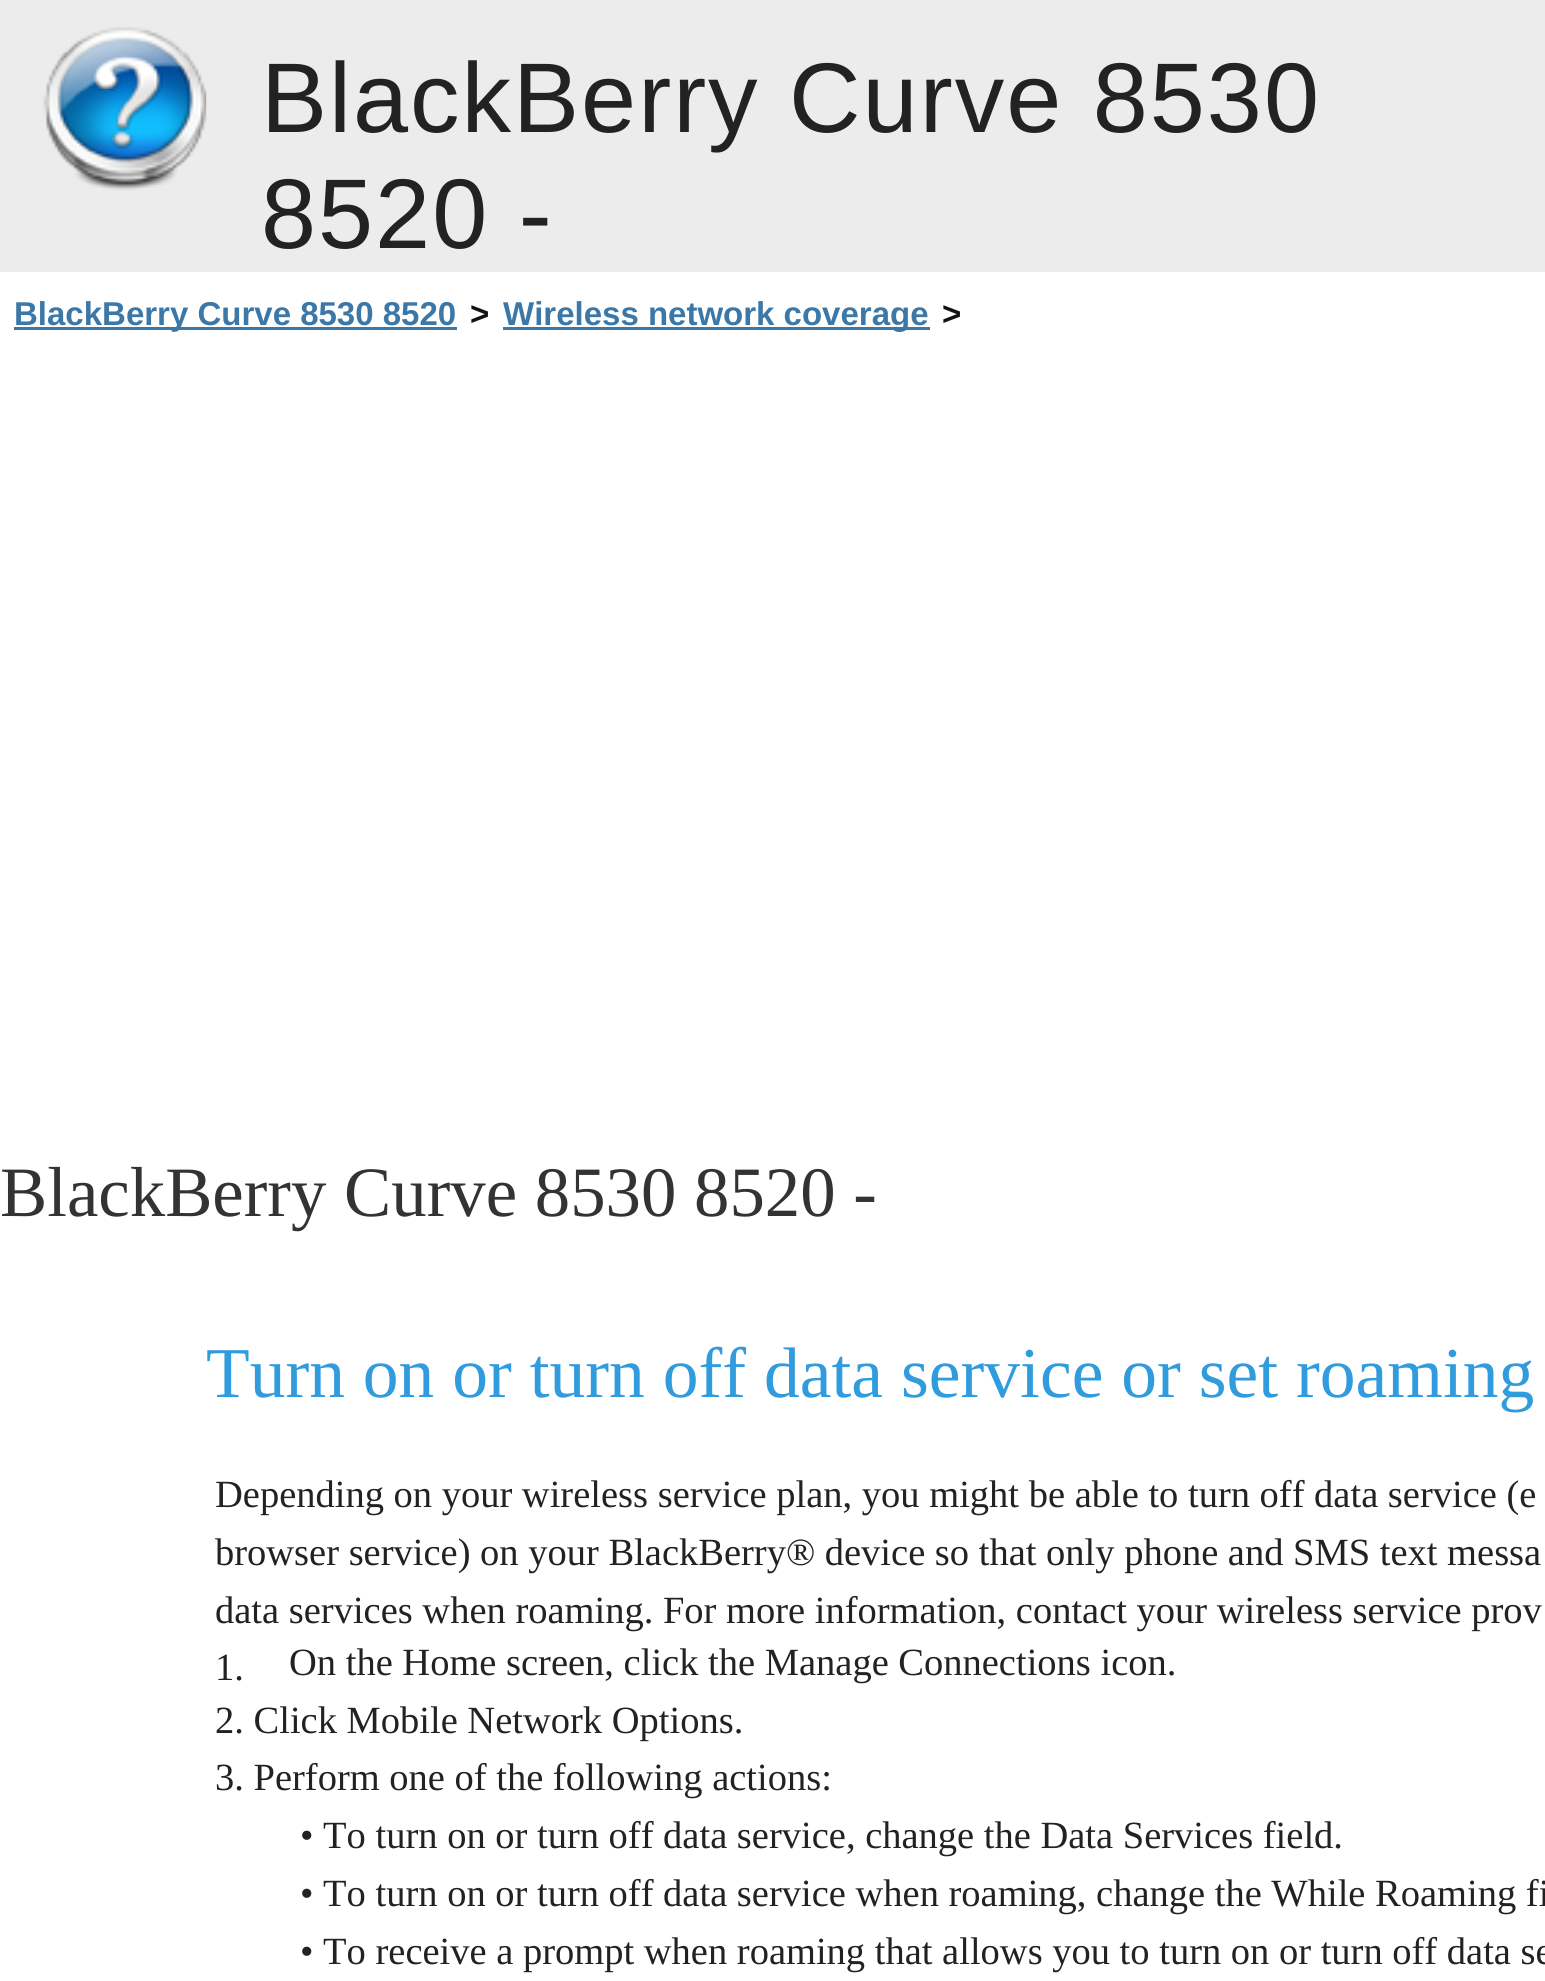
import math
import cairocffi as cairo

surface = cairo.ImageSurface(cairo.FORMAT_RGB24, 1545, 1981)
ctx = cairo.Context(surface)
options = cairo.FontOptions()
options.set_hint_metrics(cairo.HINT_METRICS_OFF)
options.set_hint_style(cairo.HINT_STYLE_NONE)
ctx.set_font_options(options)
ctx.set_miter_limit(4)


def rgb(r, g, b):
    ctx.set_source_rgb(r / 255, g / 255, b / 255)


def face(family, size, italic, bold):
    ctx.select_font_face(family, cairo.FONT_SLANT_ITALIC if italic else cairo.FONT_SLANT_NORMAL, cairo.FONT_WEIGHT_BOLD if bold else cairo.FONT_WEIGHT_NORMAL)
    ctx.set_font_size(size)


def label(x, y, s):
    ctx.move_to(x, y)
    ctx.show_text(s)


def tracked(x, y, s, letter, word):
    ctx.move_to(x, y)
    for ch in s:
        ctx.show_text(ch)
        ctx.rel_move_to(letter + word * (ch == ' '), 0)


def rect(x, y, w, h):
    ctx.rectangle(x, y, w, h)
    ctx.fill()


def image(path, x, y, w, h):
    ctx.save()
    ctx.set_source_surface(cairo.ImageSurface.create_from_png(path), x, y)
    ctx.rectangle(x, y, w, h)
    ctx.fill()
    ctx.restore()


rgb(236, 236, 236)
ctx.paint()
image('image0.png', 43, 27, 164, 164)
face('Liberation Sans', 99, 0, 0)
rgb(34, 34, 34)
tracked(261, 132, 'BlackBerry Curve 8530', 2, 0)
tracked(261, 248, '8520 -', 2, 0)
rgb(255, 255, 255)
rect(0, 272, 1545, 1709)
rgb(60, 120, 167)
rect(14, 327, 443, 3)
face('Liberation Sans', 33, 0, 1)
label(14, 325, 'BlackBerry Curve 8530 8520')
rgb(17, 17, 17)
label(470, 325, '>')
rgb(60, 120, 167)
rect(503, 327, 427, 3)
label(503, 325, 'Wireless network coverage')
rgb(17, 17, 17)
label(942, 325, '>')
face('Liberation Serif', 70.8, 0, 0)
rgb(51, 51, 51)
label(0, 1216, 'BlackBerry Curve 8530 8520 -')
face('Liberation Serif', 71.5, 0, 0)
rgb(48, 155, 221)
label(206, 1397, 'Turn on or turn off data service or set roaming')
face('Liberation Serif', 38.5, 0, 0)
rgb(34, 34, 34)
label(215, 1507, 'Depending on your wireless service plan, you might be able to turn off data service (e')
label(215, 1565, 'browser service) on your BlackBerry® device so that only phone and SMS text messa')
label(215, 1623, 'data services when roaming. For more information, contact your wireless service prov')
label(215, 1680, '1.')
label(289, 1675, 'On the Home screen, click the Manage Connections icon.')
label(215, 1733, '2. Click Mobile Network Options.')
label(215, 1790, '3. Perform one of the following actions:')
label(300, 1848, '• To turn on or turn off data service, change the Data Services field.')
label(300, 1906, '• To turn on or turn off data service when roaming, change the While Roaming fi')
label(300, 1964, '• To receive a prompt when roaming that allows you to turn on or turn off data se')
surface.write_to_png('render.png')
